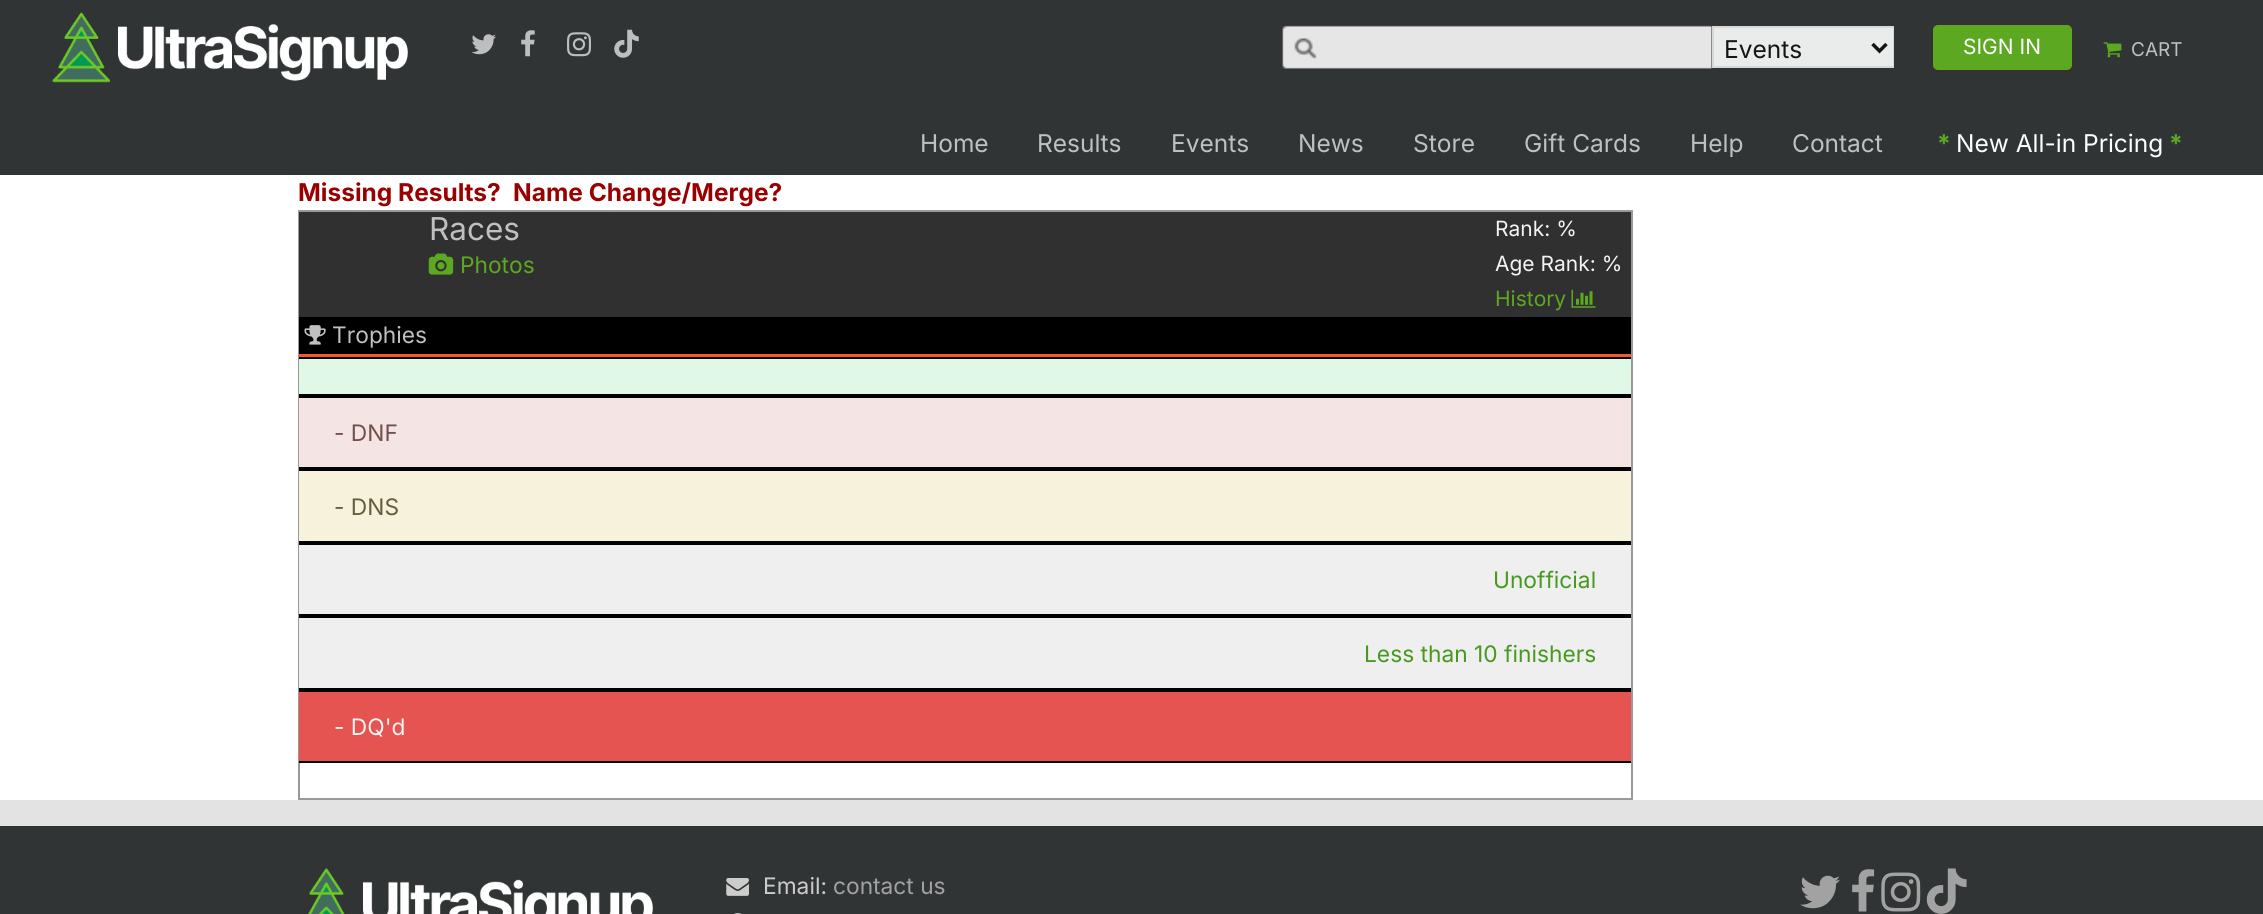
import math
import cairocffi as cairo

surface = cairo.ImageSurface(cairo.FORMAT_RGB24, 2263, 914)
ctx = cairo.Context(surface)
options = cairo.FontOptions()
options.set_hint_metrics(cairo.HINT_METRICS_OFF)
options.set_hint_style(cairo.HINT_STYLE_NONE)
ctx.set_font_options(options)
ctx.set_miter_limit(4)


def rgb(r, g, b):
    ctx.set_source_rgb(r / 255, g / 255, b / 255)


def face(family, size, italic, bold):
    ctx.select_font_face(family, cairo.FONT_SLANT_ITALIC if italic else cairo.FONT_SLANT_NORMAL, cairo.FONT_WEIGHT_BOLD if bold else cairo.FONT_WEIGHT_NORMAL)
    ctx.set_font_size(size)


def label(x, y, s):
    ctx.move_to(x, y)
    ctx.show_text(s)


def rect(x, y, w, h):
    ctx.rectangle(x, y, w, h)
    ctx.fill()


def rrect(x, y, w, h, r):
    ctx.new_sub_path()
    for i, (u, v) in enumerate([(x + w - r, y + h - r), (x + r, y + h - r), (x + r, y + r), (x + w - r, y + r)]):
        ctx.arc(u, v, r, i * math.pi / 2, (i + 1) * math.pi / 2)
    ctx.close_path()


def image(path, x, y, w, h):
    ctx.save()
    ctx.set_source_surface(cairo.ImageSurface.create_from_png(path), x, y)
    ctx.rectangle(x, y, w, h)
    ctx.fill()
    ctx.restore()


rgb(255, 255, 255)
ctx.paint()
rgb(48, 52, 52)
rect(0, 0, 2263, 175)
image('image0.png', 52, 12, 356, 71)
image('image1.png', 471, 34, 25, 21)
image('image2.png', 521, 30, 14, 27)
image('image3.png', 567, 32, 24, 25)
image('image4.png', 614, 29, 25, 29)
image('image5.png', 1282, 25, 430, 44)
rgb(234, 235, 235)
rect(1714, 28, 179, 38)
ctx.save()
ctx.rectangle(1694, 23, 200, 47)
ctx.clip()
ctx.rectangle(1713, 27, 181, 40)
rgb(216, 216, 215)
ctx.stroke()
ctx.restore()
ctx.new_path()
ctx.move_to(1872.5, 44)
ctx.line_to(1879.5, 51)
ctx.line_to(1886.5, 44)
rgb(19, 22, 22)
ctx.set_line_width(3.5)
ctx.stroke()
face('Inter', 24.5, 0, 0)
label(1724, 58, 'Events')
rgb(92, 169, 33)
rrect(1931, 23, 143, 49, 7)
ctx.fill_preserve()
rgb(51, 51, 51)
ctx.set_line_width(4)
ctx.stroke()
face('Inter', 21, 0, 0)
rgb(255, 255, 255)
label(1963, 54, 'SIGN IN')
image('image6.png', 2103, 42, 19, 16)
face('Inter', 19, 0, 0)
rgb(192, 192, 192)
label(2131, 56, 'CART')
face('Inter', 24.5, 0, 0)
label(920, 152, 'Home')
label(1037, 152, 'Results')
label(1171, 152, 'Events')
label(1298, 152, 'News')
label(1413, 152, 'Store')
label(1524, 152, 'Gift Cards')
label(1690, 152, 'Help')
label(1792, 152, 'Contact')
face('Inter', 24.5, 0, 1)
rgb(92, 169, 33)
label(1937, 152, '*')
face('Inter', 24.5, 0, 0)
rgb(255, 255, 255)
label(1956, 152, 'New All-in Pricing')
face('Inter', 24.5, 0, 1)
rgb(92, 169, 33)
label(2169, 152, '*')
rgb(153, 0, 0)
label(298, 201, 'Missing Results?')
label(513, 201, 'Name Change/Merge?')
ctx.rectangle(299, 211, 1333, 588)
rgb(153, 153, 153)
ctx.set_line_width(2)
ctx.stroke()
rgb(48, 48, 48)
rect(299, 212, 1332, 105)
face('Inter', 31.5, 0, 0)
rgb(192, 192, 192)
label(429, 240, 'Races')
image('image7.png', 428, 253, 26, 22)
face('Inter', 22.75, 0, 0)
rgb(92, 169, 33)
label(460, 273, 'Photos')
face('Inter', 21, 0, 0)
rgb(244, 244, 244)
label(1495, 236, 'Rank: %')
label(1495, 271, 'Age Rank: %')
rgb(92, 169, 33)
label(1495, 306, 'History')
image('image8.png', 1571, 289, 25, 19)
rgb(0, 0, 0)
rect(299, 317, 1332, 37)
rgb(241, 90, 41)
rect(299, 354, 1332, 3)
image('image9.png', 304, 325, 22, 20)
face('Inter', 22.75, 0, 0)
rgb(192, 192, 192)
label(332, 343, 'Trophies')
rgb(224, 248, 230)
rect(299, 359, 1332, 35)
rgb(0, 0, 0)
rect(299, 357, 1332, 2)
rect(299, 394, 1332, 4)
rgb(244, 228, 228)
rect(299, 398, 1332, 69)
rgb(0, 0, 0)
rect(299, 467, 1332, 4)
rgb(117, 79, 79)
label(334, 441, '- DNF')
rgb(247, 242, 220)
rect(299, 471, 1332, 70)
rgb(0, 0, 0)
rect(299, 541, 1332, 4)
rgb(101, 93, 61)
label(334, 515, '- DNS')
rgb(239, 239, 239)
rect(299, 545, 1332, 69)
rgb(0, 0, 0)
rect(299, 614, 1332, 4)
rgb(71, 153, 31)
label(1493, 588, 'Unofficial')
rgb(239, 239, 239)
rect(299, 618, 1332, 70)
rgb(0, 0, 0)
rect(299, 688, 1332, 4)
rgb(71, 153, 31)
label(1364, 662, 'Less than 10 finishers')
rgb(229, 84, 81)
rect(299, 692, 1332, 69)
rgb(0, 0, 0)
rect(299, 761, 1332, 2)
rgb(244, 244, 244)
label(334, 735, '- DQ\'d')
rgb(227, 227, 227)
rect(0, 800, 2263, 26)
rgb(48, 52, 52)
rect(0, 826, 2263, 88)
image('image10.png', 308, 868, 345, 46)
image('image11.png', 726, 878, 23, 18)
rgb(204, 204, 204)
label(763, 894, 'Email:')
rgb(162, 162, 162)
label(833, 894, 'contact us')
image('image12.png', 734, 913, 8, 1)
image('image13.png', 1800, 875, 40, 34)
image('image14.png', 1852, 869, 23, 43)
image('image15.png', 1881, 872, 40, 40)
image('image16.png', 1926, 868, 41, 46)
surface.write_to_png('render.png')
